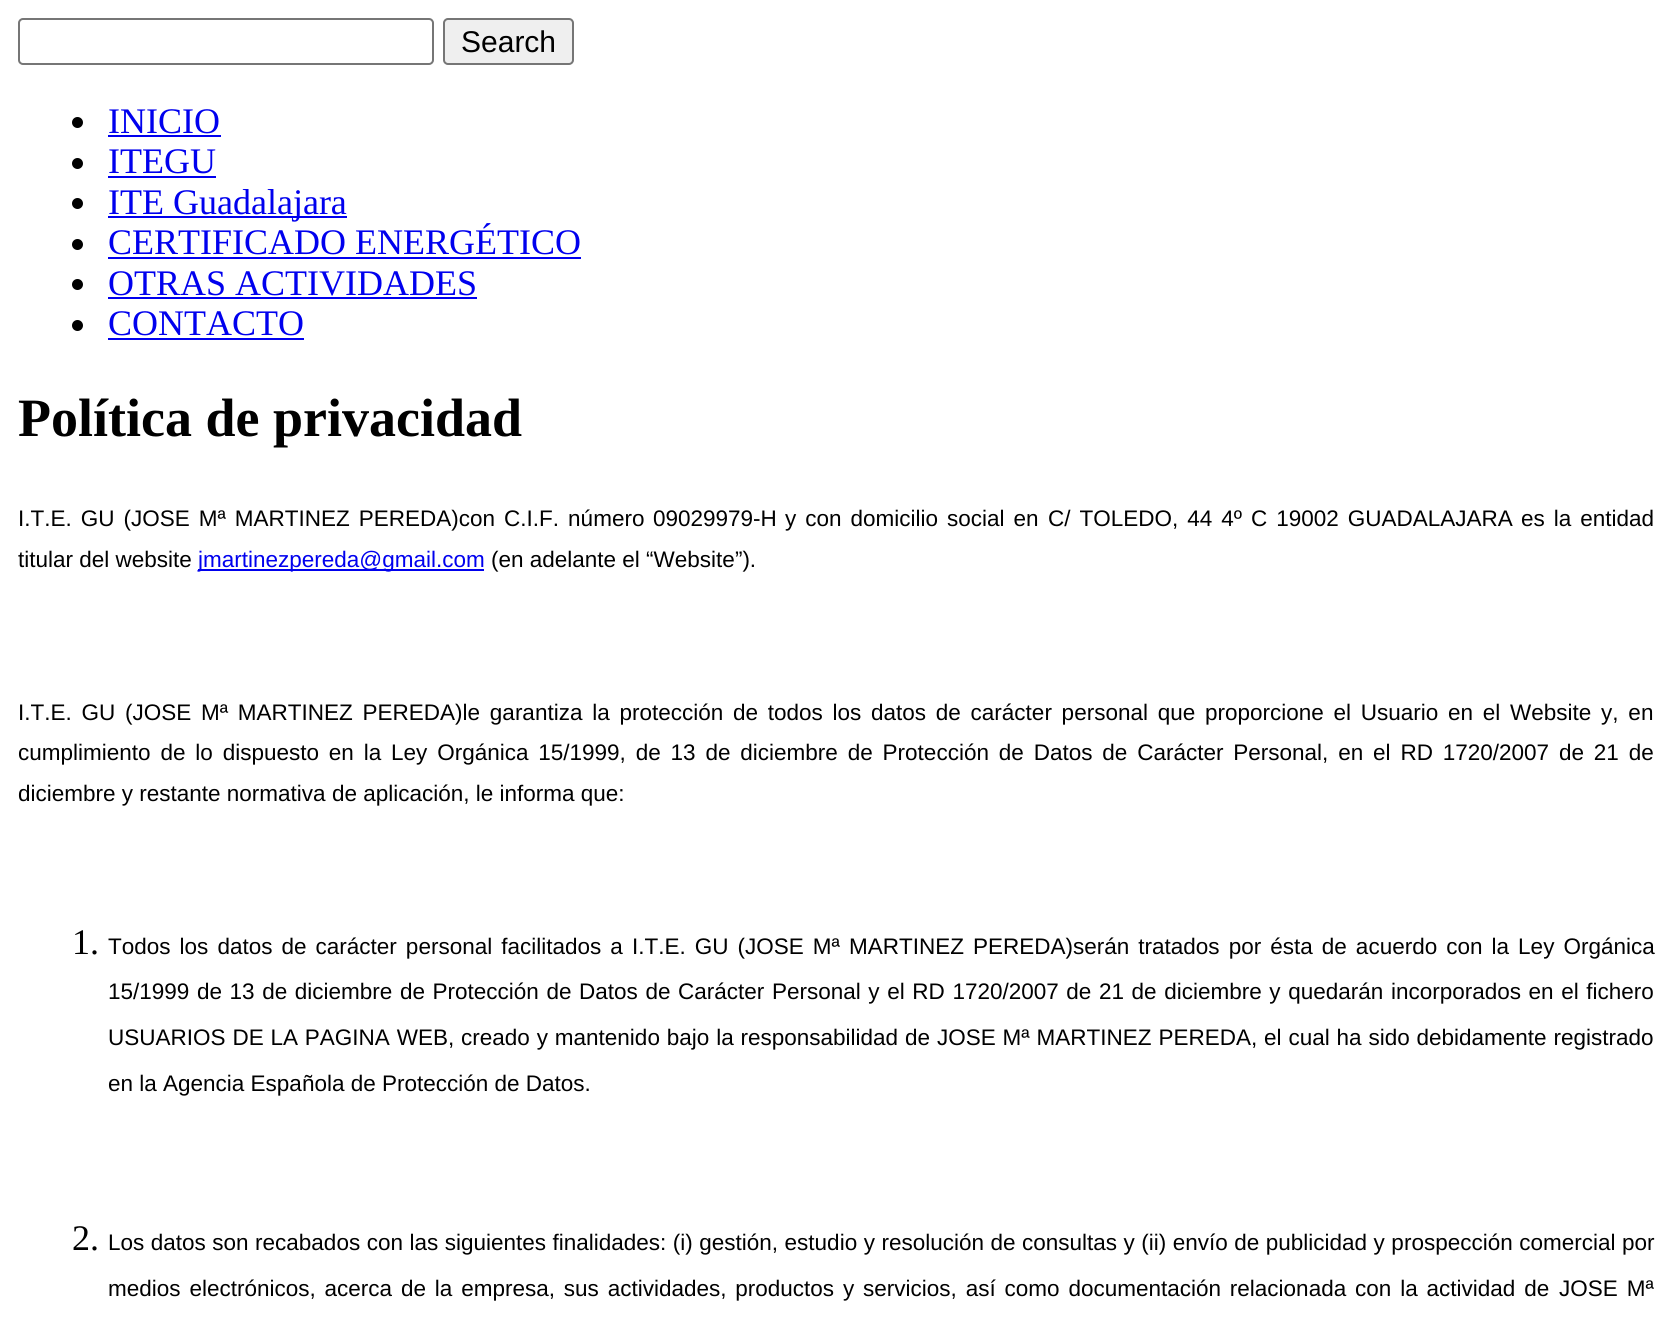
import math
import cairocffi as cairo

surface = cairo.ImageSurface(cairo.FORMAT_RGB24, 1670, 1336)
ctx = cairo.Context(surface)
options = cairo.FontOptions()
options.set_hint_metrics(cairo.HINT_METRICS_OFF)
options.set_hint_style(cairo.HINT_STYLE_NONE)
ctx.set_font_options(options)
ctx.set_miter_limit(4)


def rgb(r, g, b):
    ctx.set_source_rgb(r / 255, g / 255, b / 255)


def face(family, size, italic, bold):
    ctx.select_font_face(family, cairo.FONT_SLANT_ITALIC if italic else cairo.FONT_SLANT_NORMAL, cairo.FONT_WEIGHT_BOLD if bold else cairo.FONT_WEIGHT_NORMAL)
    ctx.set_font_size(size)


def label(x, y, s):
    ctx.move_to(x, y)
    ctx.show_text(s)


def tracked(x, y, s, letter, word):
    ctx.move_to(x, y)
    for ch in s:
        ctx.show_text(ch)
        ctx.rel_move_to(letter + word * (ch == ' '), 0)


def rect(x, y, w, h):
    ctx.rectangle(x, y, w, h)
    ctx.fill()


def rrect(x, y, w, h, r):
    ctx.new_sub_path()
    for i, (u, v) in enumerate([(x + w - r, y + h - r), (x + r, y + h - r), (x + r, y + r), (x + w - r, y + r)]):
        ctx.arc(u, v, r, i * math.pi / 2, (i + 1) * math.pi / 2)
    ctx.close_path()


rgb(255, 255, 255)
ctx.paint()
rrect(19, 19, 414, 45, 4)
rgb(118, 118, 118)
ctx.stroke()
rgb(239, 239, 239)
rrect(444, 19, 129, 45, 4)
ctx.fill_preserve()
rgb(118, 118, 118)
ctx.stroke()
face('Liberation Sans', 30, 0, 0)
rgb(0, 0, 0)
label(461, 52, 'Search')
ctx.new_path()
ctx.arc(77.5, 122.5, 5.5, 0, 2 * math.pi)
ctx.fill()
face('Liberation Serif', 36, 0, 0)
rgb(0, 0, 238)
label(108, 133, 'INICIO')
rect(108, 135, 113, 2)
rgb(0, 0, 0)
ctx.new_path()
ctx.arc(77.5, 163.5, 5.5, 0, 2 * math.pi)
ctx.fill()
rgb(0, 0, 238)
label(108, 173, 'ITEGU')
rect(108, 176, 108, 2)
rgb(0, 0, 0)
ctx.new_path()
ctx.arc(77.5, 203.5, 5.5, 0, 2 * math.pi)
ctx.fill()
rgb(0, 0, 238)
rect(108, 216, 239, 2)
label(108, 214, 'ITE Guadalajara')
rgb(0, 0, 0)
ctx.new_path()
ctx.arc(77.5, 244.5, 5.5, 0, 2 * math.pi)
ctx.fill()
rgb(0, 0, 238)
label(108, 254, 'CERTIFICADO ENERGÉTICO')
rect(108, 257, 473, 2)
rgb(0, 0, 0)
ctx.new_path()
ctx.arc(77.5, 284.5, 5.5, 0, 2 * math.pi)
ctx.fill()
rgb(0, 0, 238)
label(108, 295, 'OTRAS ACTIVIDADES')
rect(108, 297, 369, 2)
rgb(0, 0, 0)
ctx.new_path()
ctx.arc(77.5, 325.5, 5.5, 0, 2 * math.pi)
ctx.fill()
rgb(0, 0, 238)
label(108, 335, 'CONTACTO')
rect(108, 338, 196, 2)
face('Liberation Serif', 54, 0, 1)
rgb(0, 0, 0)
label(18, 436, 'Política de privacidad')
face('Liberation Sans', 22.5, 0, 0)
tracked(18, 526, 'I.T.E. GU (JOSE Mª MARTINEZ PEREDA)con C.I.F. número', 0, 2.75)
label(653, 526, '09029979-H')
tracked(785, 526, 'y con domicilio social en', 0, 2.75)
tracked(1048, 526, 'C/ TOLEDO, 44 4º C 19002 GUADALAJARA', 0, 2.75)
tracked(1521, 526, 'es la entidad', 0, 2.75)
label(18, 567, 'titular del website')
rgb(0, 0, 238)
rect(198, 569, 286, 2)
label(198, 567, 'jmartinezpereda@gmail.com')
rgb(0, 0, 0)
label(491, 567, '(en adelante el “Website”).')
tracked(18, 720, 'I.T.E. GU (JOSE Mª MARTINEZ PEREDA)le garantiza la protección de todos los datos de carácter personal que proporcione el Usuario en el Website y, en', 0, 3.5)
tracked(18, 760, 'cumplimiento de lo dispuesto en la Ley Orgánica 15/1999, de 13 de diciembre de Protección de Datos de Carácter Personal, en el RD 1720/2007 de 21 de', 0, 3.6)
label(18, 801, 'diciembre y restante normativa de aplicación, le informa que:')
face('Liberation Serif', 36, 0, 0)
label(72, 954, '1.')
face('Liberation Sans', 22.5, 0, 0)
tracked(108, 954, 'Todos los datos de carácter personal facilitados a I.T.E. GU (JOSE Mª MARTINEZ PEREDA)serán tratados por ésta de acuerdo con la Ley Orgánica', 0, 2.8)
tracked(108, 999, '15/1999 de 13 de diciembre de Protección de Datos de Carácter Personal y el RD 1720/2007 de 21 de diciembre y quedarán incorporados en el fichero', 0, 1.35)
tracked(108, 1045, 'USUARIOS DE LA PAGINA WEB, creado y mantenido bajo la responsabilidad de', 0, 0.6)
tracked(937, 1045, 'JOSE Mª MARTINEZ PEREDA, el cual ha sido debidamente registrado', 0, 0.6)
label(108, 1091, 'en la Agencia Española de Protección de Datos.')
face('Liberation Serif', 36, 0, 0)
label(72, 1250, '2.')
face('Liberation Sans', 22.5, 0, 0)
tracked(108, 1250, 'Los datos son recabados con las siguientes finalidades: (i) gestión, estudio y resolución de consultas y (ii) envío de publicidad y prospección comercial por', 0, 0.25)
tracked(108, 1296, 'medios electrónicos, acerca de la empresa, sus actividades, productos y servicios, así como documentación relacionada con la actividad de', 0, 2.6)
tracked(1559, 1296, 'JOSE Mª', 0, 2.75)
surface.write_to_png('render.png')
